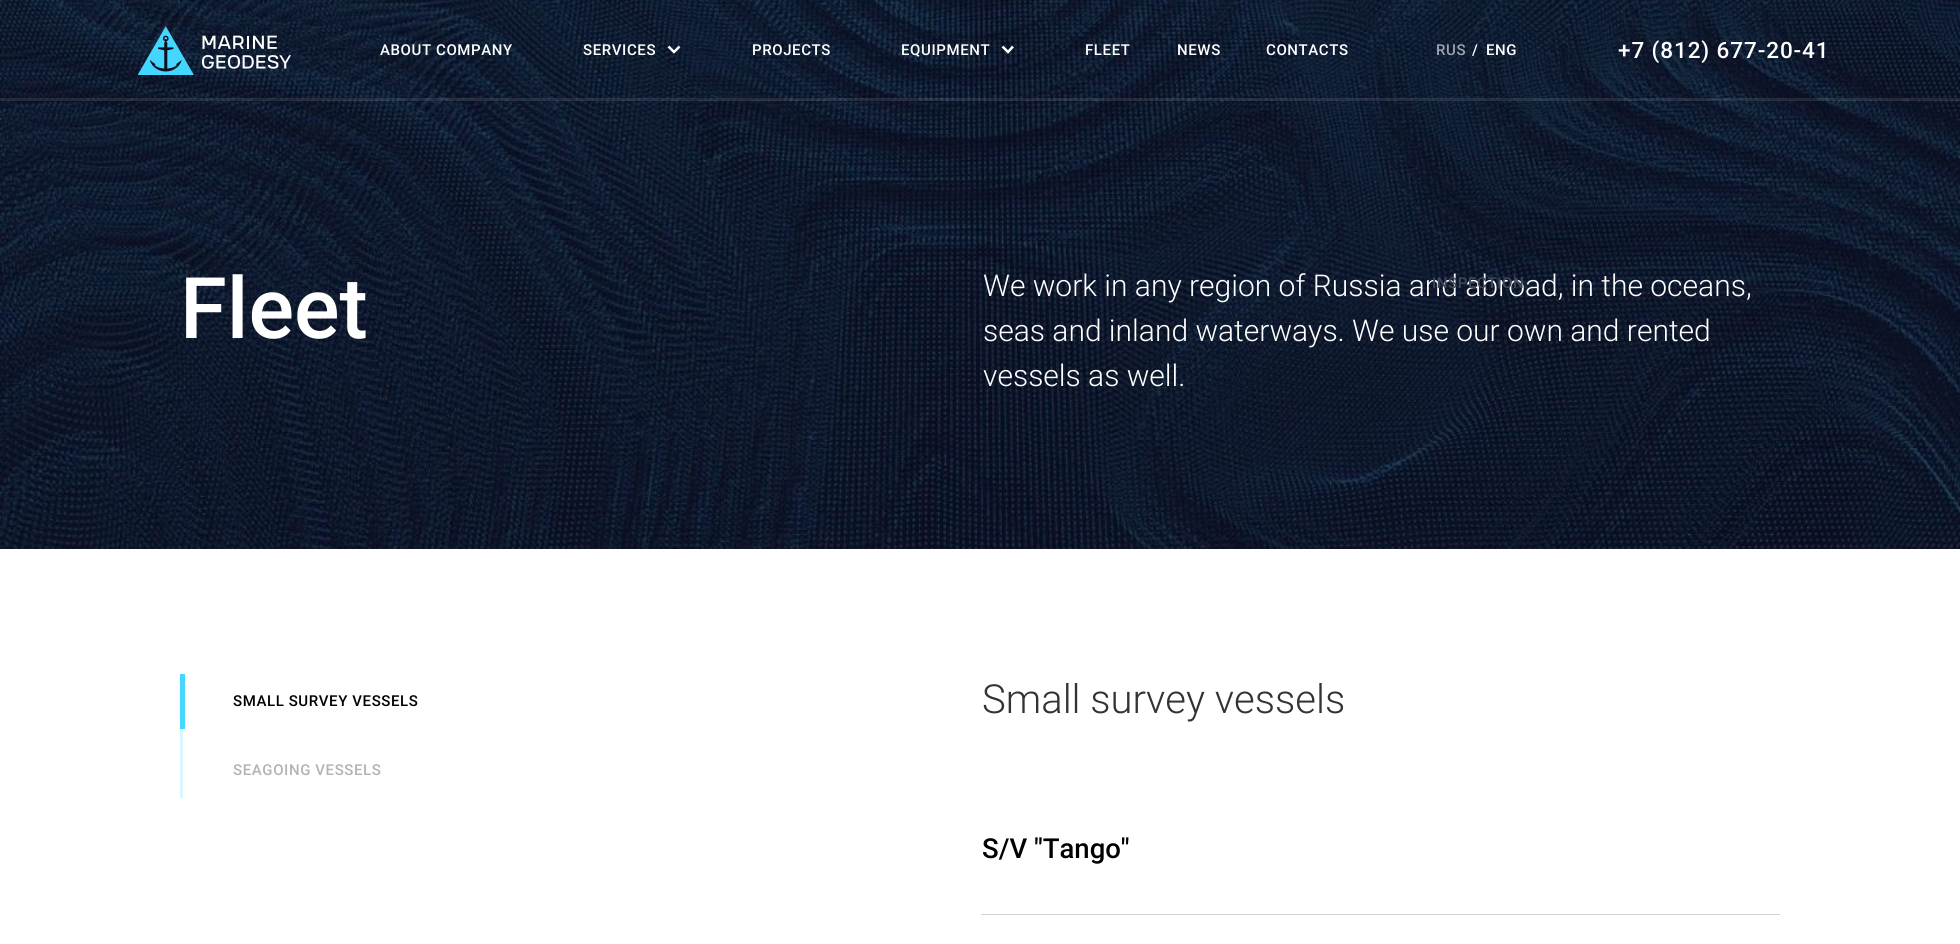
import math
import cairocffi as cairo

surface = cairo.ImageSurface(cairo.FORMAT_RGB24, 1960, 944)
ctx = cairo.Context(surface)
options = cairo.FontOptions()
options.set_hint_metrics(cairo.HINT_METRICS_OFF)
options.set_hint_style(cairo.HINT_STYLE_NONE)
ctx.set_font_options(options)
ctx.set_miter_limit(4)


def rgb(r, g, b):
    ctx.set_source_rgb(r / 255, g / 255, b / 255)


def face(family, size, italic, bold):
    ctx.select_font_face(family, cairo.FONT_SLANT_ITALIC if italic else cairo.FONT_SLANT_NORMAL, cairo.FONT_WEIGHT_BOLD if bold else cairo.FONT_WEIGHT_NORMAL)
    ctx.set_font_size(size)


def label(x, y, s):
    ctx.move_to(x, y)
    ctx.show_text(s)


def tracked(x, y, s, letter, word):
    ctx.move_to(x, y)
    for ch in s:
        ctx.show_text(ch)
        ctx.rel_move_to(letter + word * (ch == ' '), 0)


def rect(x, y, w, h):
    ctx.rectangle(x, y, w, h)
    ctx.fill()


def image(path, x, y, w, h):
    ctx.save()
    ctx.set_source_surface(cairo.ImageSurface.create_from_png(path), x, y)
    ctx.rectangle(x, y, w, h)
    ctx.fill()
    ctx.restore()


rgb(255, 255, 255)
ctx.paint()
rgb(22, 22, 22)
rect(0, 0, 1960, 549)
image('image1.png', 0, 0, 1960, 549)
image('image0.png', 138, 26, 153, 49)
face('Roboto Medium', 15, 0, 0)
rgb(255, 255, 255)
tracked(380, 55, 'ABOUT COMPANY', 0.6, 0)
tracked(583, 55, 'SERVICES', 0.6, 0)
ctx.new_path()
ctx.move_to(679.5, 46.5)
ctx.line_to(674, 52)
ctx.line_to(668.5, 46.5)
ctx.set_line_width(2.5)
ctx.stroke()
face('Roboto Light', 30, 0, 0)
label(983, 296, 'We work in any region of Russia and abroad, in the oceans,')
face('Roboto Medium', 15, 0, 0)
rgb(64, 72, 88)
tracked(1432, 288, 'INSPECTION', 0.6, 0)
rgb(255, 255, 255)
tracked(752, 55, 'PROJECTS', 0.6, 0)
tracked(901, 55, 'EQUIPMENT', 0.6, 0)
ctx.new_path()
ctx.move_to(1013, 46.5)
ctx.line_to(1008, 52)
ctx.line_to(1002.5, 46.5)
ctx.stroke()
tracked(1085, 55, 'FLEET', 0.6, 0)
tracked(1177, 55, 'NEWS', 0.6, 0)
tracked(1266, 55, 'CONTACTS', 0.6, 0)
face('Roboto Medium', 22.5, 0, 0)
tracked(1618, 58, '+7 (812) 677-20-41', 0.9, 0)
face('Roboto Medium', 15, 0, 0)
rgb(159, 165, 173)
tracked(1436, 55, 'RUS', 0.6, 0)
rgb(255, 255, 255)
tracked(1472, 55, '/', 0.6, 0)
tracked(1486, 55, 'ENG', 0.6, 0)
ctx.set_source_rgba(1, 1, 1, 0.1)
rect(0, 98, 1960, 3)
face('Roboto Medium', 85, 0, 0)
rgb(255, 255, 255)
label(180, 338, 'Fleet')
face('Roboto Light', 30, 0, 0)
label(983, 341, 'seas and inland waterways. We use our own and rented')
label(983, 386, 'vessels as well.')
rgb(67, 215, 255)
rect(180, 674, 5, 55)
face('Roboto Medium', 15, 0, 0)
rgb(0, 0, 3)
tracked(233, 706, 'SMALL SURVEY VESSELS', 0.6, 0)
rgb(217, 247, 255)
rect(180, 729, 3, 69)
rgb(179, 179, 179)
tracked(233, 775, 'SEAGOING VESSELS', 0.6, 0)
face('Roboto Light', 40, 0, 0)
rgb(51, 51, 53)
label(982, 713, 'Small survey vessels')
rgb(211, 211, 212)
rect(981, 914, 799, 1)
face('Roboto Medium', 27.5, 0, 0)
rgb(0, 0, 3)
label(982, 858, 'S/V "Tango"')
surface.write_to_png('render.png')
